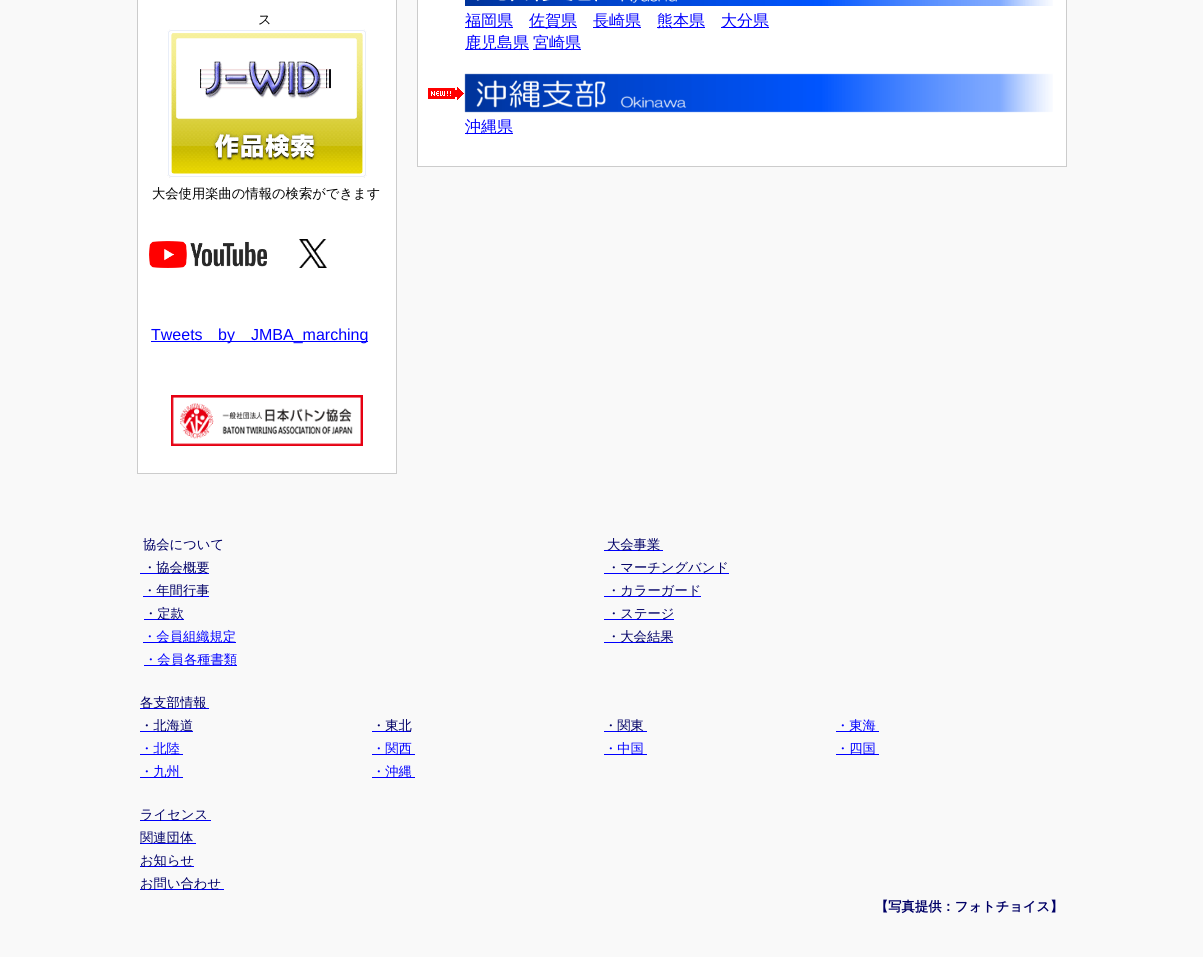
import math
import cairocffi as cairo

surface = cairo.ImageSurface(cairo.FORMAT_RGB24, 1203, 957)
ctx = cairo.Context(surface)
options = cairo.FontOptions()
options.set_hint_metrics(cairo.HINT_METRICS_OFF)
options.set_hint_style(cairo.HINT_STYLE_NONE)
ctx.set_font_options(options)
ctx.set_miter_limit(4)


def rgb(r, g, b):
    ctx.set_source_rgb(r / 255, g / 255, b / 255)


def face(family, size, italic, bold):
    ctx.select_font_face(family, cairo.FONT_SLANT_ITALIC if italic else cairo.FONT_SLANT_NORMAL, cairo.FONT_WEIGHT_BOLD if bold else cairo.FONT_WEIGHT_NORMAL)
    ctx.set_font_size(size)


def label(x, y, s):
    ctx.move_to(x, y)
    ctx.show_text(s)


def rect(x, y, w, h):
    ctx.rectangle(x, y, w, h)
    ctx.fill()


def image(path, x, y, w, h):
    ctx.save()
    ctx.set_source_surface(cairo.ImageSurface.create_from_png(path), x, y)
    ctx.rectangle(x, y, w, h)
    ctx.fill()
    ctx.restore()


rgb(249, 249, 249)
ctx.paint()
rgb(255, 255, 255)
ctx.rectangle(137.5, -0.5, 259, 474)
ctx.fill_preserve()
rgb(204, 204, 204)
ctx.set_line_width(1)
ctx.stroke()
face('WenQuanYi Zen Hei Medium', 13.3, 0, 0)
rgb(0, 0, 0)
label(258, 24, 'ス')
image('image0.png', 167, 29, 200, 149)
label(152, 198, '大会使用楽曲の情報の検索ができます')
image('image1.png', 149, 241, 118, 27)
image('image2.png', 299, 239, 28, 29)
face('Liberation Sans', 16, 0, 0)
rgb(0, 0, 255)
label(151, 340, 'Tweets')
rect(151, 341, 217, 1)
label(218, 340, 'by')
label(251, 340, 'JMBA_marching')
image('image3.png', 171, 395, 192, 51)
rgb(255, 255, 255)
ctx.rectangle(417.5, -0.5, 649, 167)
ctx.fill_preserve()
rgb(204, 204, 204)
ctx.stroke()
image('image4.png', 465, 0, 588, 6)
rgb(0, 0, 255)
rect(465, 27, 48, 1)
face('WenQuanYi Zen Hei Medium', 16, 0, 0)
label(465, 26, '福岡県')
rect(529, 27, 48, 1)
label(529, 26, '佐賀県')
rect(593, 27, 48, 1)
label(593, 26, '長崎県')
rect(657, 27, 48, 1)
label(657, 26, '熊本県')
rect(721, 27, 48, 1)
label(721, 26, '大分県')
rect(465, 49, 64, 1)
label(465, 48, '鹿児島県')
rect(533, 49, 48, 1)
label(533, 48, '宮崎県')
image('image5.png', 428, 87, 36, 13)
image('image6.png', 464, 73, 589, 40)
rect(465, 133, 48, 1)
label(465, 132, '沖縄県')
face('WenQuanYi Zen Hei Medium', 13.3, 0, 0)
rgb(0, 0, 102)
label(143, 549, '協会について')
rgb(0, 0, 255)
rect(604, 550, 59, 1)
rgb(0, 0, 102)
label(607, 549, '大会事業')
rgb(0, 0, 255)
rect(140, 573, 69, 1)
rgb(0, 0, 102)
label(143, 572, '・協会概要')
rgb(0, 0, 255)
rect(604, 573, 125, 1)
rgb(0, 0, 102)
label(607, 572, '・マーチングバンド')
rgb(0, 0, 255)
rect(143, 596, 66, 1)
rgb(0, 0, 102)
label(143, 595, '・年間行事')
rgb(0, 0, 255)
rect(604, 596, 97, 1)
rgb(0, 0, 102)
label(607, 595, '・カラーガード')
rgb(0, 0, 255)
rect(144, 619, 40, 1)
rgb(0, 0, 102)
label(144, 618, '・定款')
rgb(0, 0, 255)
rect(604, 619, 70, 1)
rgb(0, 0, 102)
label(607, 618, '・ステージ')
rgb(0, 0, 255)
rect(143, 642, 93, 1)
label(143, 641, '・会員組織規定')
rect(604, 642, 69, 1)
rgb(0, 0, 102)
label(607, 641, '・大会結果')
rgb(0, 0, 255)
rect(144, 665, 93, 1)
label(144, 664, '・会員各種書類')
rect(140, 708, 69, 1)
rgb(0, 0, 102)
label(140, 707, '各支部情報')
rgb(0, 0, 255)
rect(140, 731, 53, 1)
rgb(0, 0, 102)
label(140, 730, '・北海道')
rgb(0, 0, 255)
rect(372, 731, 39, 1)
rgb(0, 0, 102)
label(372, 730, '・東北')
rgb(0, 0, 255)
rect(604, 731, 43, 1)
rgb(0, 0, 102)
label(604, 730, '・関東')
rgb(0, 0, 255)
rect(836, 731, 43, 1)
label(836, 730, '・東海')
rect(140, 754, 43, 1)
label(140, 753, '・北陸')
rect(372, 754, 43, 1)
label(372, 753, '・関西')
rect(604, 754, 43, 1)
label(604, 753, '・中国')
rect(836, 754, 43, 1)
label(836, 753, '・四国')
rect(140, 777, 43, 1)
label(140, 776, '・九州')
rect(372, 777, 43, 1)
label(372, 776, '・沖縄')
rect(140, 820, 71, 1)
rgb(0, 0, 102)
label(140, 819, 'ライセンス')
rgb(0, 0, 255)
rect(140, 843, 56, 1)
rgb(0, 0, 102)
label(140, 842, '関連団体')
rgb(0, 0, 255)
rect(140, 866, 54, 1)
rgb(0, 0, 102)
label(140, 865, 'お知らせ')
rgb(0, 0, 255)
rect(140, 889, 84, 1)
rgb(0, 0, 102)
label(140, 888, 'お問い合わせ')
face('WenQuanYi Zen Hei', 13.3, 0, 1)
label(875, 911, '【写真提供：フォトチョイス】')
surface.write_to_png('render.png')
